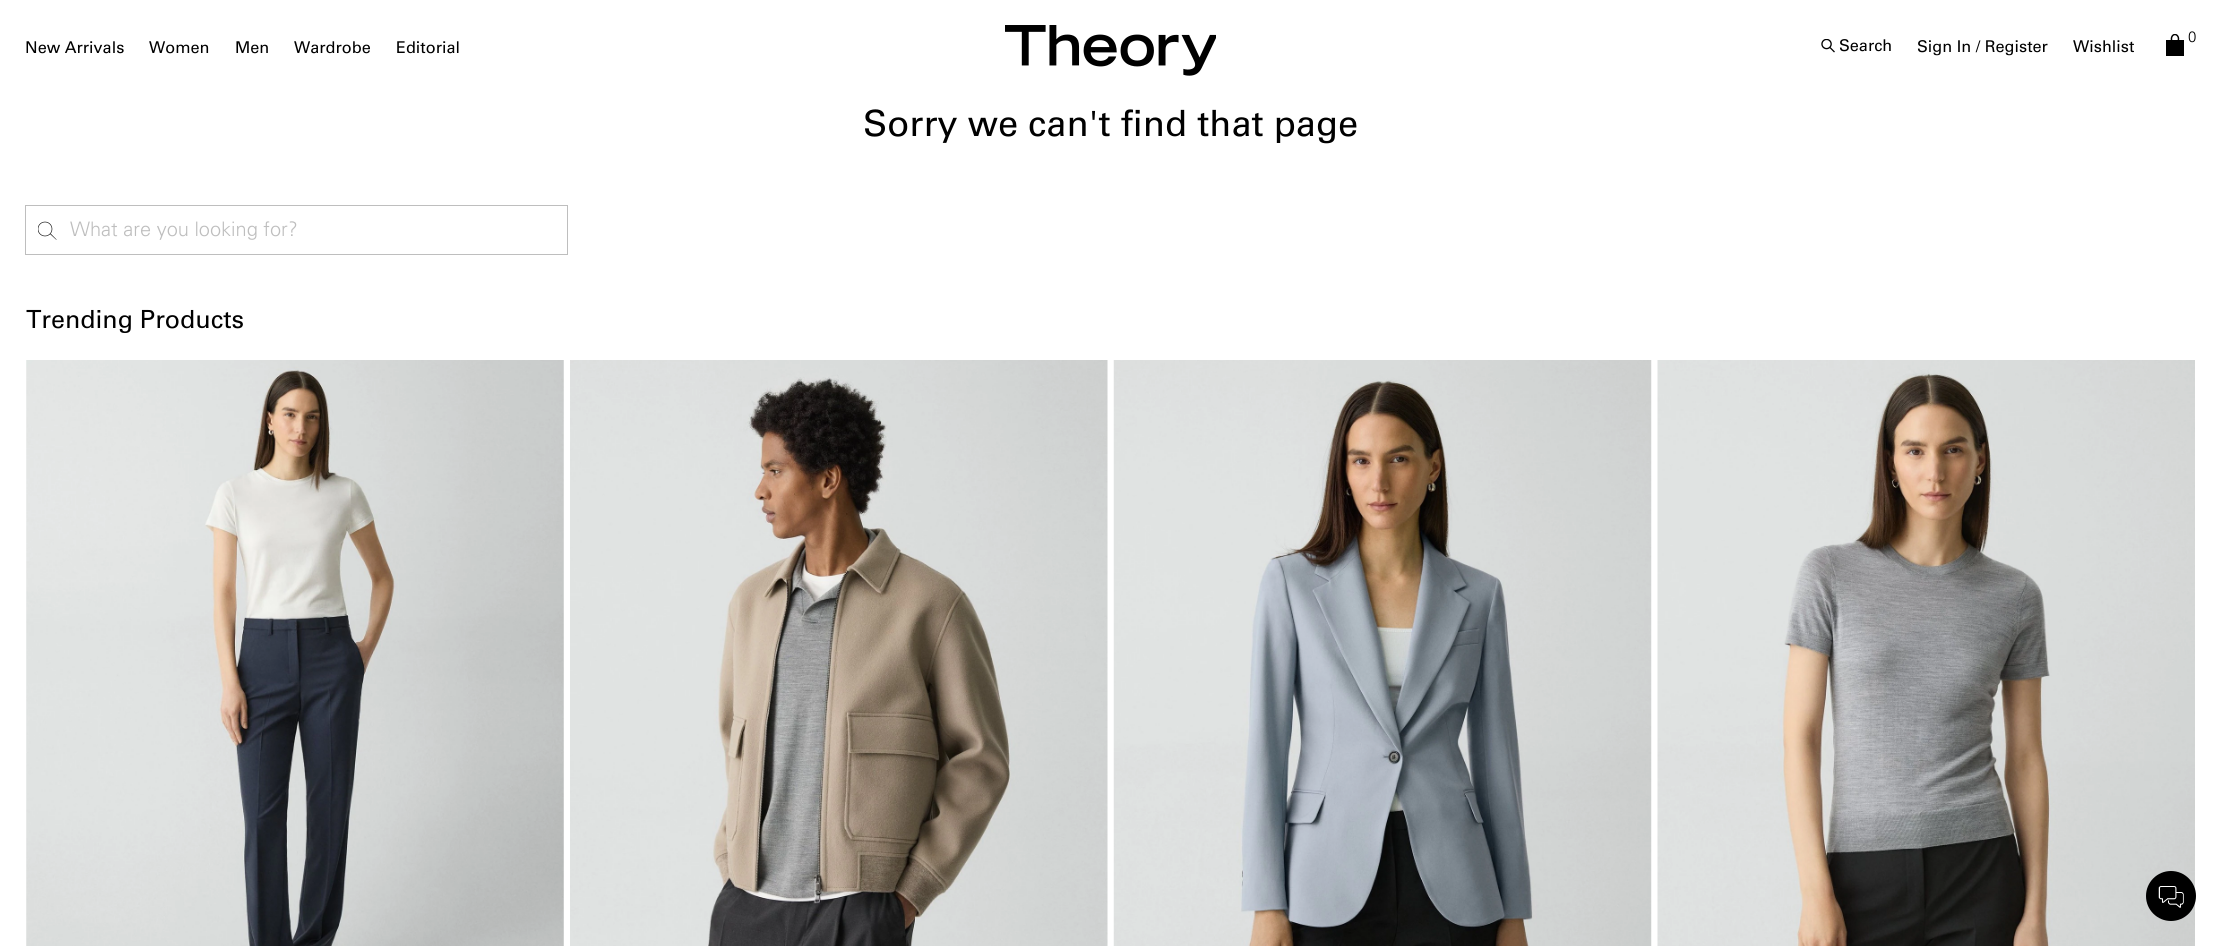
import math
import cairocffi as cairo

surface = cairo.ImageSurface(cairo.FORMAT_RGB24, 2221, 946)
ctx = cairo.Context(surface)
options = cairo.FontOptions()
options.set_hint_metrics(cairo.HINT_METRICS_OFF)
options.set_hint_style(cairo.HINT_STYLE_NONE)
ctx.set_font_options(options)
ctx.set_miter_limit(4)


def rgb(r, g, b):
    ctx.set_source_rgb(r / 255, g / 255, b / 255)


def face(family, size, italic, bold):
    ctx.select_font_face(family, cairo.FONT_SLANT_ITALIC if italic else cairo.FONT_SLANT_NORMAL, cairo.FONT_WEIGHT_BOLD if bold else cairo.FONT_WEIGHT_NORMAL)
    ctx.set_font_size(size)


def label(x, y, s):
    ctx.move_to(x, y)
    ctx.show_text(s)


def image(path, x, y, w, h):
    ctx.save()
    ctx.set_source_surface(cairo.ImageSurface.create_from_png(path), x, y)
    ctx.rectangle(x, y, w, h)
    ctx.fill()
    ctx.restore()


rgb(255, 255, 255)
ctx.paint()
face('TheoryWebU', 16.25, 0, 0)
rgb(0, 0, 0)
label(25, 53, 'New Arrivals')
label(149, 53, 'Women')
label(235, 53, 'Men')
label(294, 53, 'Wardrobe')
label(396, 53, 'Editorial')
image('image0.png', 1005, 25, 211, 51)
image('image1.png', 2166, 34, 18, 22)
face('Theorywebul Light', 15, 0, 0)
label(2188, 42, '0')
image('image2.png', 1821, 39, 14, 14)
face('TheoryWebU', 16.25, 0, 0)
label(1839, 51, 'Search')
label(1917, 52, 'Sign In / Register')
label(2073, 52, 'Wishlist')
face('TheoryWebU', 36.25, 0, 0)
label(863, 136, 'Sorry we can\'t find that page')
ctx.rectangle(25.5, 205.5, 542, 49)
rgb(190, 190, 190)
ctx.set_line_width(1)
ctx.stroke()
ctx.save()
ctx.rectangle(38, 221, 20, 20)
ctx.clip()
ctx.arc(45, 229, 7, 0, 2 * math.pi)
rgb(0, 0, 0)
ctx.set_line_width(0.6)
ctx.stroke()
ctx.restore()
rgb(0, 0, 0)
ctx.new_path()
ctx.move_to(50.5, 233.5)
ctx.line_to(56.5, 239.5)
ctx.line_to(56.5, 240)
ctx.line_to(50, 234)
ctx.close_path()
ctx.fill()
face('Theorywebul Light', 20, 0, 0)
rgb(190, 190, 190)
label(70, 236, 'What are you looking for?')
face('TheoryWebU', 25, 0, 0)
rgb(0, 0, 0)
label(26, 328, 'Trending Products')
image('image3.png', 26, 360, 538, 586)
image('image4.png', 570, 360, 538, 586)
image('image5.png', 1113, 360, 539, 586)
image('image6.png', 1657, 360, 538, 586)
ctx.arc(2171, 896, 25, 0, 2 * math.pi)
ctx.fill()
image('image7.png', 2158, 886, 26, 22)
surface.write_to_png('render.png')
